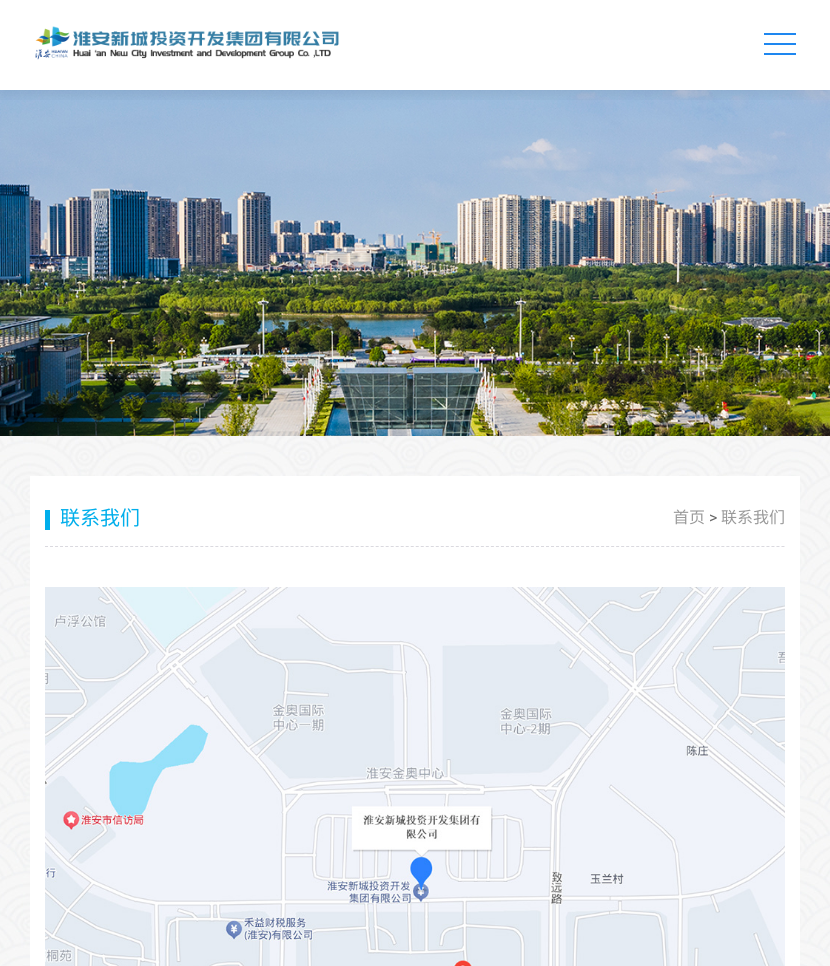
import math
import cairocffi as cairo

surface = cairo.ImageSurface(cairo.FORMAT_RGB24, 830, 966)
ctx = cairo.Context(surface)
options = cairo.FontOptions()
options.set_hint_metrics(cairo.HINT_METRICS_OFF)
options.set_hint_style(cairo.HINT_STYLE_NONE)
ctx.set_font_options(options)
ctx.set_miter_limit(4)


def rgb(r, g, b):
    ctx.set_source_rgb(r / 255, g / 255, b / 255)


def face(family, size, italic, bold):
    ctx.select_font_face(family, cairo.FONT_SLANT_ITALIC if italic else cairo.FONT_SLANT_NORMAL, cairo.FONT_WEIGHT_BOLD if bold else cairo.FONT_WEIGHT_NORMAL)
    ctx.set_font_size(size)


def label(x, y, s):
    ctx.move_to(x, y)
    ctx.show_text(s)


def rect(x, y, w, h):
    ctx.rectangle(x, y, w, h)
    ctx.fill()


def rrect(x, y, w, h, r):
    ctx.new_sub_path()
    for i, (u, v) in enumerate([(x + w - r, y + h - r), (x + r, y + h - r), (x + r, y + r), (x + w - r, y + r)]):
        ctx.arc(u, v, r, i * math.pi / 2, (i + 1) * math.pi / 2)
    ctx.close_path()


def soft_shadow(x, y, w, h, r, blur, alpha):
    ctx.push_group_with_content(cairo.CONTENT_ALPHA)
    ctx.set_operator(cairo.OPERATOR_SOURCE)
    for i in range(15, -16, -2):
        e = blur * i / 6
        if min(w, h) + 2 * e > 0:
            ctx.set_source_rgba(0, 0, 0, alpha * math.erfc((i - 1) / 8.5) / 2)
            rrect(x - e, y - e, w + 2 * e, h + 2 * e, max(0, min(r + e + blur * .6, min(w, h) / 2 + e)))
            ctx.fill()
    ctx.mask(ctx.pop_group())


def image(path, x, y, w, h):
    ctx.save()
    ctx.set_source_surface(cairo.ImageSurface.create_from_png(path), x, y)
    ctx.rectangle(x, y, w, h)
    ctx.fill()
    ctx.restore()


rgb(255, 255, 255)
ctx.paint()
image('image1.png', 0, 90, 830, 346)
ctx.save()
ctx.rectangle(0, 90, 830, 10)
ctx.clip()
rgb(0, 0, 0)
soft_shadow(0, 5, 830, 90, 0, 7.5, 0.08)
ctx.restore()
image('image0.png', 35, 26, 304, 34)
rgb(30, 135, 240)
rect(764, 33, 32, 2)
rect(764, 43, 32, 2)
rect(764, 53, 32, 2)
image('image2.png', 0, 436, 830, 530)
rgb(255, 255, 255)
rect(30, 476, 770, 490)
ctx.new_path()
ctx.move_to(45, 546.5)
ctx.line_to(785, 546.5)
rgb(218, 217, 223)
ctx.set_line_width(1)
ctx.set_dash([3, 2.01])
ctx.stroke()
rgb(0, 174, 235)
rect(45, 510, 5, 20)
face('Noto Sans CJK SC', 20, 0, 0)
label(60, 525, '联系我们')
face('Noto Sans CJK SC', 16, 0, 0)
rgb(153, 153, 153)
label(673, 523, '首页')
face('Roboto', 16, 0, 0)
rgb(102, 102, 102)
label(709, 523, '>')
face('Noto Sans CJK SC', 16, 0, 0)
rgb(153, 153, 153)
label(721, 523, '联系我们')
image('image3.png', 45, 587, 740, 379)
surface.write_to_png('render.png')
